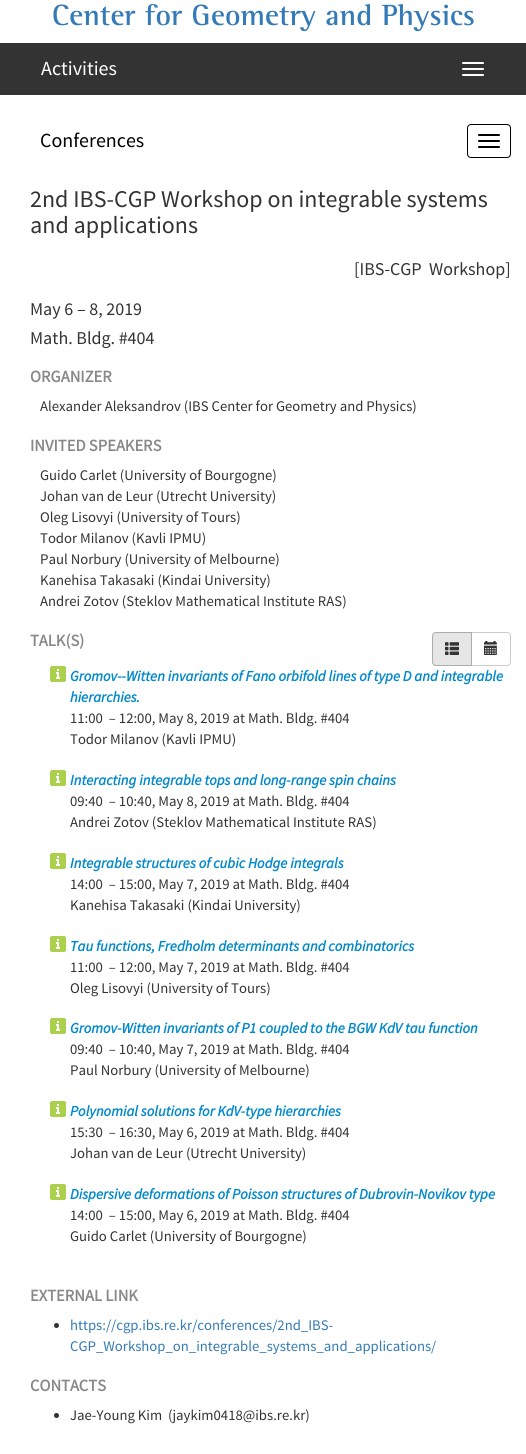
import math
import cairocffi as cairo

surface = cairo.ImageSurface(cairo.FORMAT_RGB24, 526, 1454)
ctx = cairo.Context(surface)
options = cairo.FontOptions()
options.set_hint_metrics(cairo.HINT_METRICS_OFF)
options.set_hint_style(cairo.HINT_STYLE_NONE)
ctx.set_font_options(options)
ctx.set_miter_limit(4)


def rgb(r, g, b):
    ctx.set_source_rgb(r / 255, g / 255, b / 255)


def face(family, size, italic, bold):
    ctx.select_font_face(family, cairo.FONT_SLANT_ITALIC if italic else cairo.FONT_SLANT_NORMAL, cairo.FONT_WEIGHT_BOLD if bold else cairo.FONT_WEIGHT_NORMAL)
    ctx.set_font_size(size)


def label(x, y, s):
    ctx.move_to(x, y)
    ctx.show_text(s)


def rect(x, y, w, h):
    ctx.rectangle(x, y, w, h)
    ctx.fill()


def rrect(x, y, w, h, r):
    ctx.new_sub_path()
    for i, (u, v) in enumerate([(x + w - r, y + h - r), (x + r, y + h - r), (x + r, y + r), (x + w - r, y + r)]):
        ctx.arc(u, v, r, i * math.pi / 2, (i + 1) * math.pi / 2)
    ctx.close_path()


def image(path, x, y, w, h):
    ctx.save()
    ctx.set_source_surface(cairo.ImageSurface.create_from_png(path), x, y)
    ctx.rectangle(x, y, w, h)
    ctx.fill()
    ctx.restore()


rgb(255, 255, 255)
ctx.paint()
face('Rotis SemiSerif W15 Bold', 30, 0, 1)
rgb(51, 122, 183)
label(52, 25, 'Center for Geometry and Physics')
rgb(51, 51, 51)
rect(0, 43, 526, 52)
face('Source Sans Pro', 20, 0, 0)
rgb(255, 255, 255)
label(41, 75, 'Activities')
rrect(462, 62, 22, 2, 1)
ctx.fill()
rrect(462, 68, 22, 2, 1)
ctx.fill()
rrect(462, 74, 22, 2, 1)
ctx.fill()
rgb(0, 0, 0)
label(40, 147, 'Conferences')
rrect(467.5, 124.5, 43, 33, 3.5)
ctx.set_line_width(1)
ctx.stroke()
rrect(478, 134, 22, 2, 1)
ctx.fill()
rrect(478, 140, 22, 2, 1)
ctx.fill()
rrect(478, 146, 22, 2, 1)
ctx.fill()
face('Source Sans Pro', 24, 0, 0)
rgb(51, 51, 51)
label(30, 207, '2nd IBS-CGP Workshop on integrable systems')
label(30, 233, 'and applications')
face('Source Sans Pro', 18, 0, 0)
label(354, 275, '[IBS-CGP')
label(429, 275, 'Workshop]')
label(30, 315, 'May 6 – 8, 2019')
label(30, 344, 'Math. Bldg. #404')
face('Source Sans Pro', 16.5, 0, 1)
rgb(136, 136, 136)
label(30, 382, 'ORGANIZER')
face('Source Sans Pro', 14.7, 0, 0)
rgb(51, 51, 51)
label(40, 411, 'Alexander Aleksandrov (IBS Center for Geometry and Physics)')
face('Source Sans Pro', 16.5, 0, 1)
rgb(136, 136, 136)
label(30, 451, 'INVITED SPEAKERS')
face('Source Sans Pro', 14.7, 0, 0)
rgb(51, 51, 51)
label(40, 480, 'Guido Carlet (University of Bourgogne)')
label(40, 501, 'Johan van de Leur (Utrecht University)')
label(40, 522, 'Oleg Lisovyi (University of Tours)')
label(40, 543, 'Todor Milanov (Kavli IPMU)')
label(40, 564, 'Paul Norbury (University of Melbourne)')
label(40, 585, 'Kanehisa Takasaki (Kindai University)')
label(40, 606, 'Andrei Zotov (Steklov Mathematical Institute RAS)')
face('Source Sans Pro', 16.5, 0, 1)
rgb(136, 136, 136)
label(30, 646, 'TALK(S)')
ctx.new_path()
ctx.move_to(471.5, 632.5)
ctx.line_to(507, 632.5)
ctx.curve_to(509, 632.5, 510.5, 634, 510.5, 636)
ctx.line_to(510.5, 662)
ctx.curve_to(510.5, 664, 509, 665.5, 507, 665.5)
ctx.line_to(471.5, 665.5)
ctx.close_path()
rgb(204, 204, 204)
ctx.stroke()
rgb(230, 230, 230)
ctx.new_path()
ctx.move_to(436, 632.5)
ctx.line_to(471.5, 632.5)
ctx.line_to(471.5, 665.5)
ctx.line_to(436, 665.5)
ctx.curve_to(434, 665.5, 432.5, 664, 432.5, 662)
ctx.line_to(432.5, 636)
ctx.curve_to(432.5, 634, 434, 632.5, 436, 632.5)
ctx.close_path()
ctx.fill_preserve()
rgb(173, 173, 173)
ctx.stroke()
image('image0.png', 445, 642, 14, 13)
image('image1.png', 484, 641, 13, 14)
image('image2.png', 50, 666, 16, 16)
face('Source Sans Pro', 14.7, 1, 1)
rgb(0, 136, 204)
label(70, 681, 'Gromov--Witten invariants of Fano orbifold lines of type D and integrable')
label(70, 702, 'hierarchies.')
face('Source Sans Pro', 14.7, 0, 0)
rgb(51, 51, 51)
label(70, 723, '11:00  – 12:00, May 8, 2019 at Math. Bldg. #404')
label(70, 744, 'Todor Milanov (Kavli IPMU)')
image('image2.png', 50, 770, 16, 16)
face('Source Sans Pro', 14.7, 1, 1)
rgb(0, 136, 204)
label(70, 785, 'Interacting integrable tops and long-range spin chains')
face('Source Sans Pro', 14.7, 0, 0)
rgb(51, 51, 51)
label(70, 806, '09:40  – 10:40, May 8, 2019 at Math. Bldg. #404')
label(70, 827, 'Andrei Zotov (Steklov Mathematical Institute RAS)')
image('image2.png', 50, 853, 16, 16)
face('Source Sans Pro', 14.7, 1, 1)
rgb(0, 136, 204)
label(70, 868, 'Integrable structures of cubic Hodge integrals')
face('Source Sans Pro', 14.7, 0, 0)
rgb(51, 51, 51)
label(70, 889, '14:00  – 15:00, May 7, 2019 at Math. Bldg. #404')
label(70, 910, 'Kanehisa Takasaki (Kindai University)')
image('image2.png', 50, 936, 16, 16)
face('Source Sans Pro', 14.7, 1, 1)
rgb(0, 136, 204)
label(70, 951, 'Tau functions, Fredholm determinants and combinatorics')
face('Source Sans Pro', 14.7, 0, 0)
rgb(51, 51, 51)
label(70, 972, '11:00  – 12:00, May 7, 2019 at Math. Bldg. #404')
label(70, 993, 'Oleg Lisovyi (University of Tours)')
image('image2.png', 50, 1018, 16, 16)
face('Source Sans Pro', 14.7, 1, 1)
rgb(0, 136, 204)
label(70, 1033, 'Gromov-Witten invariants of P1 coupled to the BGW KdV tau function')
face('Source Sans Pro', 14.7, 0, 0)
rgb(51, 51, 51)
label(70, 1054, '09:40  – 10:40, May 7, 2019 at Math. Bldg. #404')
label(70, 1075, 'Paul Norbury (University of Melbourne)')
image('image2.png', 50, 1101, 16, 16)
face('Source Sans Pro', 14.7, 1, 1)
rgb(0, 136, 204)
label(70, 1116, 'Polynomial solutions for KdV-type hierarchies')
face('Source Sans Pro', 14.7, 0, 0)
rgb(51, 51, 51)
label(70, 1137, '15:30  – 16:30, May 6, 2019 at Math. Bldg. #404')
label(70, 1158, 'Johan van de Leur (Utrecht University)')
image('image2.png', 50, 1184, 16, 16)
face('Source Sans Pro', 14.7, 1, 1)
rgb(0, 136, 204)
label(70, 1199, 'Dispersive deformations of Poisson structures of Dubrovin-Novikov type')
face('Source Sans Pro', 14.7, 0, 0)
rgb(51, 51, 51)
label(70, 1220, '14:00  – 15:00, May 6, 2019 at Math. Bldg. #404')
label(70, 1241, 'Guido Carlet (University of Bourgogne)')
face('Source Sans Pro', 16.5, 0, 1)
rgb(136, 136, 136)
label(30, 1301, 'EXTERNAL LINK')
rgb(51, 51, 51)
ctx.new_path()
ctx.arc(56.5, 1325.5, 2.5, 0, 2 * math.pi)
ctx.fill()
face('Source Sans Pro', 14.7, 0, 0)
rgb(51, 122, 183)
label(70, 1330, 'https://cgp.ibs.re.kr/conferences/2nd_IBS-')
label(70, 1351, 'CGP_Workshop_on_integrable_systems_and_applications/')
face('Source Sans Pro', 16.5, 0, 1)
rgb(136, 136, 136)
label(30, 1391, 'CONTACTS')
rgb(51, 51, 51)
ctx.new_path()
ctx.arc(56.5, 1415.5, 2.5, 0, 2 * math.pi)
ctx.fill()
face('Source Sans Pro', 14.7, 0, 0)
label(70, 1420, 'Jae-Young Kim')
label(168, 1420, '(jaykim0418@ibs.re.kr)')
surface.write_to_png('render.png')
